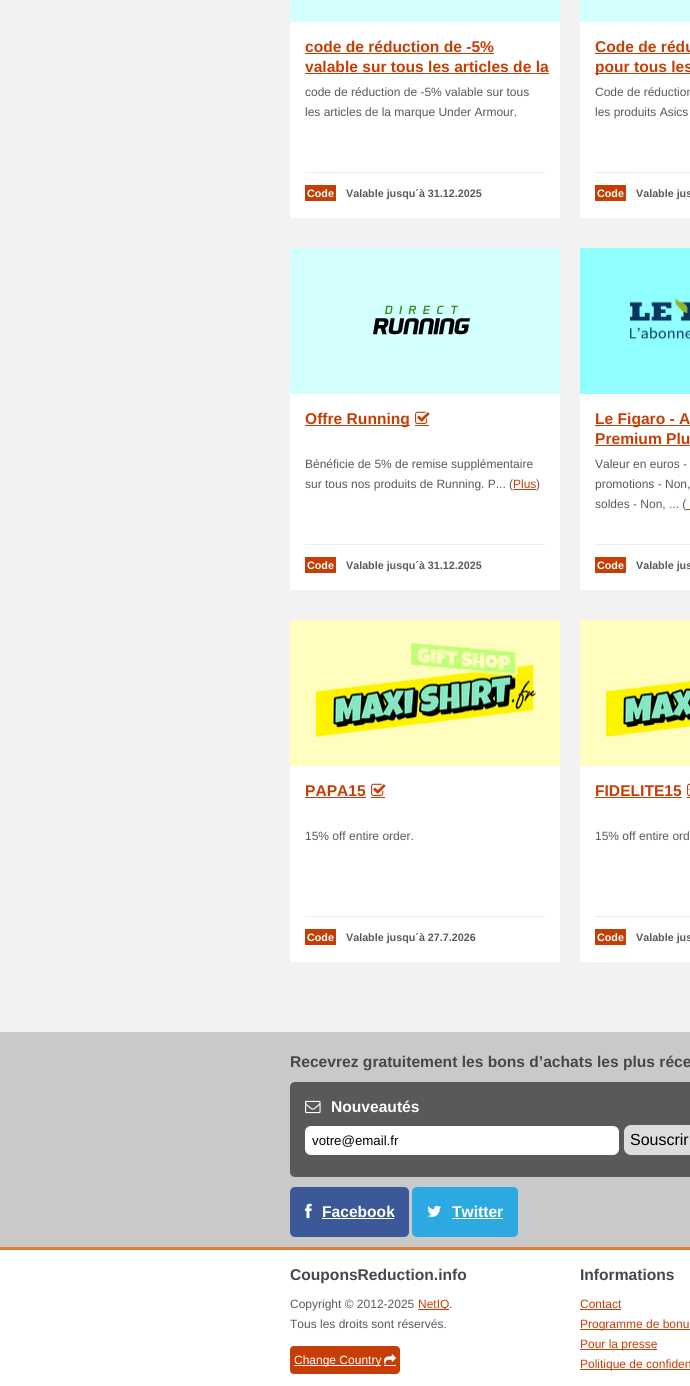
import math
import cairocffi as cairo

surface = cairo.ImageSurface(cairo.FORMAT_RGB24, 690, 1386)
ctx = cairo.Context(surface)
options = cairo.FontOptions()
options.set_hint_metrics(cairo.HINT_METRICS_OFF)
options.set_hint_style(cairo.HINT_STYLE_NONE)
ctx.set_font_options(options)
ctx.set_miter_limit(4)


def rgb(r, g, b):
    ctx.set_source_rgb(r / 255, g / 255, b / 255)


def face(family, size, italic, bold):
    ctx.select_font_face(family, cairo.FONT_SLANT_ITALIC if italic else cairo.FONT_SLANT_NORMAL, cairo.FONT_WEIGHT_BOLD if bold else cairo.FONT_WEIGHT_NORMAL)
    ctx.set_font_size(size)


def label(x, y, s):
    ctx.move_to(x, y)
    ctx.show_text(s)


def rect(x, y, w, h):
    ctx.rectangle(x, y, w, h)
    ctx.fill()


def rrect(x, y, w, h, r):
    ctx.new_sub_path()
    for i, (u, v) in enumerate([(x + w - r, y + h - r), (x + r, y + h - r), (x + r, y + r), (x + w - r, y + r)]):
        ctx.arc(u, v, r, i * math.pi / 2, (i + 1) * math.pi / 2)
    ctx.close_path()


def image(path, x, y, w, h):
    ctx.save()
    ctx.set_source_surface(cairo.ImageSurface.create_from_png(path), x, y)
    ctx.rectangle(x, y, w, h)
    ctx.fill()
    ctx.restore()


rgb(255, 255, 255)
ctx.paint()
rgb(242, 242, 242)
rect(0, 0, 690, 1032)
rgb(212, 255, 255)
rect(290, 0, 270, 22)
rgb(255, 255, 255)
rect(290, 22, 270, 196)
face('Liberation Sans', 15.6, 0, 1)
rgb(198, 62, 5)
label(305, 52, 'code de réduction de -5%')
rect(305, 53, 189, 1)
label(305, 72, 'valable sur tous les articles de la')
rect(305, 73, 244, 1)
face('Liberation Sans', 12, 0, 0)
rgb(89, 89, 89)
label(305, 96, 'code de réduction de -5% valable sur tous')
label(305, 116, 'les articles de la marque Under Armour.')
rgb(237, 237, 237)
rect(305, 172, 240, 1)
rgb(198, 62, 5)
rect(305, 185, 31, 16)
face('Liberation Sans', 10.75, 0, 1)
rgb(255, 255, 255)
label(307, 197, 'Code')
rgb(89, 89, 89)
label(346, 197, 'Valable jusqu´à 31.12.2025')
rgb(212, 255, 255)
rect(580, 0, 110, 22)
rgb(255, 255, 255)
rect(580, 22, 110, 196)
face('Liberation Sans', 15.6, 0, 1)
rgb(198, 62, 5)
label(595, 52, 'Code de rédu')
rect(595, 53, 95, 1)
rect(595, 73, 95, 1)
label(595, 72, 'pour tous les')
face('Liberation Sans', 12, 0, 0)
rgb(89, 89, 89)
label(595, 96, 'Code de réduction')
label(595, 116, 'les produits Asics')
rgb(237, 237, 237)
rect(595, 172, 95, 1)
rgb(198, 62, 5)
rect(595, 185, 31, 16)
face('Liberation Sans', 10.75, 0, 1)
rgb(255, 255, 255)
label(597, 197, 'Code')
rgb(89, 89, 89)
label(636, 197, 'Valable jus')
image('image0.png', 290, 248, 270, 146)
rgb(255, 255, 255)
rect(290, 394, 270, 196)
rgb(198, 62, 5)
rect(305, 425, 105, 1)
face('Liberation Sans', 15.6, 0, 1)
label(305, 424, 'Offre Running')
image('image1.png', 415, 411, 15, 13)
rect(415, 425, 14, 1)
face('Liberation Sans', 12, 0, 0)
rgb(89, 89, 89)
label(305, 468, 'Bénéficie de 5% de remise supplémentaire')
label(305, 488, 'sur tous nos produits de Running. P... (')
rgb(198, 62, 5)
label(513, 488, 'Plus')
rect(513, 489, 23, 1)
rgb(89, 89, 89)
label(536, 488, ')')
rgb(237, 237, 237)
rect(305, 544, 240, 1)
rgb(198, 62, 5)
rect(305, 557, 31, 16)
face('Liberation Sans', 10.75, 0, 1)
rgb(255, 255, 255)
label(307, 569, 'Code')
rgb(89, 89, 89)
label(346, 569, 'Valable jusqu´à 31.12.2025')
image('image2.png', 580, 248, 110, 146)
rgb(255, 255, 255)
rect(580, 394, 110, 196)
rgb(198, 62, 5)
rect(595, 425, 95, 1)
face('Liberation Sans', 15.6, 0, 1)
label(595, 424, 'Le Figaro - A')
label(595, 444, 'Premium Plu')
rect(595, 445, 95, 1)
face('Liberation Sans', 12, 0, 0)
rgb(89, 89, 89)
label(595, 468, 'Valeur en euros -')
label(595, 488, 'promotions - Non,')
label(595, 508, 'soldes - Non, ... (')
rgb(198, 62, 5)
rect(686, 509, 4, 1)
rgb(237, 237, 237)
rect(595, 544, 95, 1)
rgb(198, 62, 5)
rect(595, 557, 31, 16)
face('Liberation Sans', 10.75, 0, 1)
rgb(255, 255, 255)
label(597, 569, 'Code')
rgb(89, 89, 89)
label(636, 569, 'Valable jus')
image('image3.png', 290, 620, 270, 146)
rgb(255, 255, 255)
rect(290, 766, 270, 196)
face('Liberation Sans', 15.6, 0, 1)
rgb(198, 62, 5)
label(305, 796, 'PAPA15')
rect(305, 797, 61, 1)
image('image1.png', 371, 783, 15, 13)
rect(371, 797, 14, 1)
face('Liberation Sans', 12, 0, 0)
rgb(89, 89, 89)
label(305, 840, '15% off entire order.')
rgb(237, 237, 237)
rect(305, 916, 240, 1)
rgb(198, 62, 5)
rect(305, 929, 31, 16)
face('Liberation Sans', 10.75, 0, 1)
rgb(255, 255, 255)
label(307, 941, 'Code')
rgb(89, 89, 89)
label(346, 941, 'Valable jusqu´à 27.7.2026')
image('image4.png', 580, 620, 110, 146)
rgb(255, 255, 255)
rect(580, 766, 110, 196)
face('Liberation Sans', 15.6, 0, 1)
rgb(198, 62, 5)
label(595, 796, 'FIDELITE15')
rect(595, 797, 87, 1)
image('image5.png', 687, 783, 3, 13)
rect(687, 797, 3, 1)
face('Liberation Sans', 12, 0, 0)
rgb(89, 89, 89)
label(595, 840, '15% off entire ord')
rgb(237, 237, 237)
rect(595, 916, 95, 1)
rgb(198, 62, 5)
rect(595, 929, 31, 16)
face('Liberation Sans', 10.75, 0, 1)
rgb(255, 255, 255)
label(597, 941, 'Code')
rgb(89, 89, 89)
label(636, 941, 'Valable jus')
rgb(201, 201, 201)
rect(0, 1032, 690, 215)
face('Liberation Sans', 15.6, 0, 1)
rgb(71, 71, 71)
label(290, 1067, 'Recevrez gratuitement les bons d’achats les plus réce')
rgb(89, 89, 89)
rrect(290, 1082, 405, 95, 5)
ctx.fill()
image('image6.png', 305, 1100, 16, 14)
rgb(255, 255, 255)
label(331, 1112, 'Nouveautés')
rrect(305.5, 1126.5, 313, 28, 5.5)
ctx.fill_preserve()
ctx.set_line_width(1)
ctx.stroke()
face('Liberation Sans', 13.25, 0, 0)
rgb(0, 0, 0)
label(312, 1145, 'votre@email.fr')
rgb(221, 221, 221)
rrect(624, 1125, 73, 30, 7)
ctx.fill()
face('Liberation Sans', 16, 0, 0)
rgb(0, 0, 0)
label(630, 1145, 'Souscrir')
rgb(59, 89, 152)
rrect(290, 1187, 119, 50, 5)
ctx.fill()
image('image7.png', 305, 1203, 7, 16)
face('Liberation Sans', 15.6, 0, 1)
rgb(255, 255, 255)
label(322, 1217, 'Facebook')
rect(322, 1218, 72, 1)
rgb(44, 169, 225)
rrect(412, 1187, 106, 50, 5)
ctx.fill()
image('image8.png', 427, 1205, 14, 12)
rgb(255, 255, 255)
label(452, 1217, 'Twitter')
rect(452, 1218, 51, 1)
rgb(228, 126, 52)
rect(0, 1247, 690, 3)
rgb(71, 71, 71)
label(290, 1280, 'CouponsReduction.info')
face('Liberation Sans', 12, 0, 0)
rgb(89, 89, 89)
label(290, 1308, 'Copyright © 2012-2025')
rgb(198, 62, 5)
rect(418, 1309, 31, 1)
label(418, 1308, 'NetIQ')
rgb(89, 89, 89)
label(449, 1308, '.')
label(290, 1328, 'Tous les droits sont réservés.')
rgb(198, 62, 5)
rrect(290, 1346, 110, 28, 4)
ctx.fill()
rgb(255, 255, 255)
rect(294, 1365, 87, 1)
label(294, 1364, 'Change Country')
image('image9.png', 384, 1354, 12, 11)
rect(384, 1365, 12, 1)
face('Liberation Sans', 15.6, 0, 1)
rgb(71, 71, 71)
label(580, 1280, 'Informations')
face('Liberation Sans', 12, 0, 0)
rgb(198, 62, 5)
label(580, 1308, 'Contact')
rect(580, 1309, 41, 1)
rect(580, 1329, 110, 1)
label(580, 1328, 'Programme de bonu')
rect(580, 1349, 77, 1)
label(580, 1348, 'Pour la presse')
rect(580, 1369, 110, 1)
label(580, 1368, 'Politique de confiden')
surface.write_to_png('render.png')
